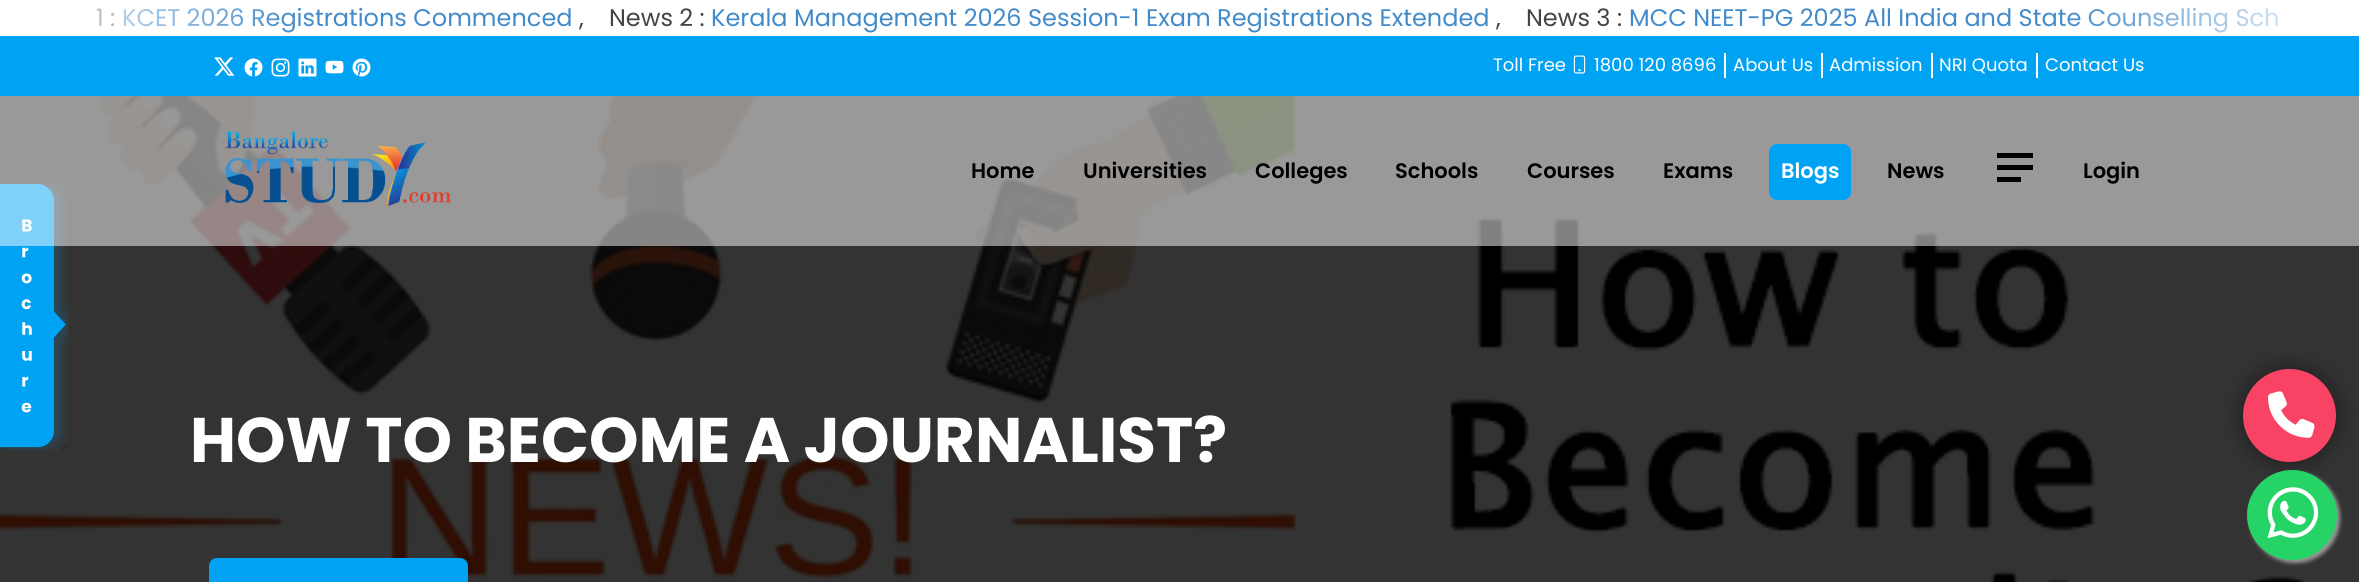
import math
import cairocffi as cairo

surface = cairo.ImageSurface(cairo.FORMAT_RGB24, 2359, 582)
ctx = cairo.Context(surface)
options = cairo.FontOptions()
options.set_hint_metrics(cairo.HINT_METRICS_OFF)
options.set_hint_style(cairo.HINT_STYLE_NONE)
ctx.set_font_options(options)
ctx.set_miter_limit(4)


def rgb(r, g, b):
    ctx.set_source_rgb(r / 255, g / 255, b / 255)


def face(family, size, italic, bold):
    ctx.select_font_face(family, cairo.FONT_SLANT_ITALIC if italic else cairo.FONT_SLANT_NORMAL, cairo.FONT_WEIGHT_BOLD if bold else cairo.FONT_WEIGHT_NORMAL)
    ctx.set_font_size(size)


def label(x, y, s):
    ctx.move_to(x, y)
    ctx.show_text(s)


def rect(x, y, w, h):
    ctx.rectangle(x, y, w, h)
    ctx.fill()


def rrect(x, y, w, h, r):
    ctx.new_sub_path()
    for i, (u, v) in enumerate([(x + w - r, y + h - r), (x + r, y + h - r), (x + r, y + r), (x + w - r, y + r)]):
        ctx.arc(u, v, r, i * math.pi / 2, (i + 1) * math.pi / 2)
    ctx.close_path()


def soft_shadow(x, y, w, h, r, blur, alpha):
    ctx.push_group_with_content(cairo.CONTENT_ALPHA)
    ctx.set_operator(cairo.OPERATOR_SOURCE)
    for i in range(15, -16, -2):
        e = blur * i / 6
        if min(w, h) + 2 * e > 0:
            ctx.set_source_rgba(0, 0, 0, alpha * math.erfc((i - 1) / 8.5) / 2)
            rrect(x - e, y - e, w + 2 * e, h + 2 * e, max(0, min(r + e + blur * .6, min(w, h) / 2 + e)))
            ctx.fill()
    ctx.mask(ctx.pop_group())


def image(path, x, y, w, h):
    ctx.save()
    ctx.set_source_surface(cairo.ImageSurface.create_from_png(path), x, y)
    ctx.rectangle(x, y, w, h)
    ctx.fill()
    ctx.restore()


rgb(255, 255, 255)
ctx.paint()
face('Poppins', 24, 0, 0)
rgb(68, 68, 68)
label(96, 26, '1 :')
rgb(66, 139, 202)
label(122, 26, 'KCET 2026 Registrations Commenced')
rgb(68, 68, 68)
label(579, 26, ',')
label(609, 26, 'News 2 :')
rgb(66, 139, 202)
label(711, 26, 'Kerala Management 2026 Session-1 Exam Registrations Extended')
rgb(68, 68, 68)
label(1496, 26, ',')
label(1526, 26, 'News 3 :')
rgb(66, 139, 202)
label(1629, 26, 'MCC NEET-PG 2025 All India and State Counselling Sch')
gradient = cairo.LinearGradient(0, 18, 300, 18)
gradient.add_color_stop_rgba(0, 1, 1, 1, 1)
gradient.add_color_stop_rgba(1, 1, 1, 1, 0)
ctx.set_source(gradient)
rect(96, 8, 198, 25)
gradient = cairo.LinearGradient(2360, 18, 2060, 18)
gradient.add_color_stop_rgba(0, 1, 1, 1, 1)
gradient.add_color_stop_rgba(1, 1, 1, 1, 0)
ctx.set_source(gradient)
rect(2067, 7, 211, 26)
rgb(0, 163, 244)
rect(0, 36, 2359, 60)
image('image0.png', 214, 57, 21, 19)
image('image1.png', 244, 58, 19, 19)
image('image2.png', 271, 58, 19, 19)
image('image3.png', 298, 58, 19, 19)
image('image4.png', 325, 60, 19, 14)
image('image5.png', 352, 58, 19, 19)
rgb(255, 255, 255)
rect(1724, 53, 2, 25)
face('Poppins', 18, 0, 0)
label(1493, 71, 'Toll Free')
image('image6.png', 1573, 55, 13, 19)
label(1594, 71, '1800 120 8696')
label(1733, 71, 'About Us')
rect(1821, 53, 2, 25)
label(1829, 71, 'Admission')
rect(1931, 53, 2, 25)
label(1939, 71, 'NRI Quota')
rect(2036, 53, 2, 25)
label(2045, 71, 'Contact Us')
image('image9.png', 0, 96, 2359, 486)
image('image8.png', 0, 184, 68, 267)
ctx.set_source_rgba(1, 1, 1, 0.5)
rect(0, 96, 2359, 150)
image('image7.png', 225, 131, 227, 76)
face('Poppins SemiBold', 21, 0, 0)
rgb(0, 0, 0)
label(971, 178, 'Home')
label(1083, 178, 'Universities')
label(1255, 178, 'Colleges')
label(1395, 178, 'Schools')
label(1527, 178, 'Courses')
label(1663, 178, 'Exams')
rgb(0, 163, 244)
rrect(1769, 144, 82, 56, 8)
ctx.fill()
rgb(255, 255, 255)
label(1781, 178, 'Blogs')
rgb(0, 0, 0)
label(1887, 178, 'News')
rect(1997, 153, 36, 5)
rect(1997, 165, 36, 5)
rect(1997, 177, 24, 5)
label(2083, 178, 'Login')
face('Poppins', 63, 0, 1)
rgb(255, 255, 255)
label(190, 462, 'HOW TO BECOME A JOURNALIST?')
rgb(0, 163, 244)
rrect(209, 558, 259, 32, 8)
ctx.fill()
rgb(0, 0, 0)
soft_shadow(2243, 369, 93, 93, 46.5, 11, 0.45)
rgb(248, 67, 101)
ctx.arc(2289.5, 415.5, 46.5, 0, 2 * math.pi)
ctx.fill()
image('image10.png', 2268, 391, 47, 47)
rgb(153, 153, 153)
soft_shadow(2250, 473, 90, 90, 45, 2, 1)
rgb(37, 211, 102)
ctx.arc(2292, 515, 45, 0, 2 * math.pi)
ctx.fill()
image('image11.png', 2267, 487, 52, 52)
surface.write_to_png('render.png')
